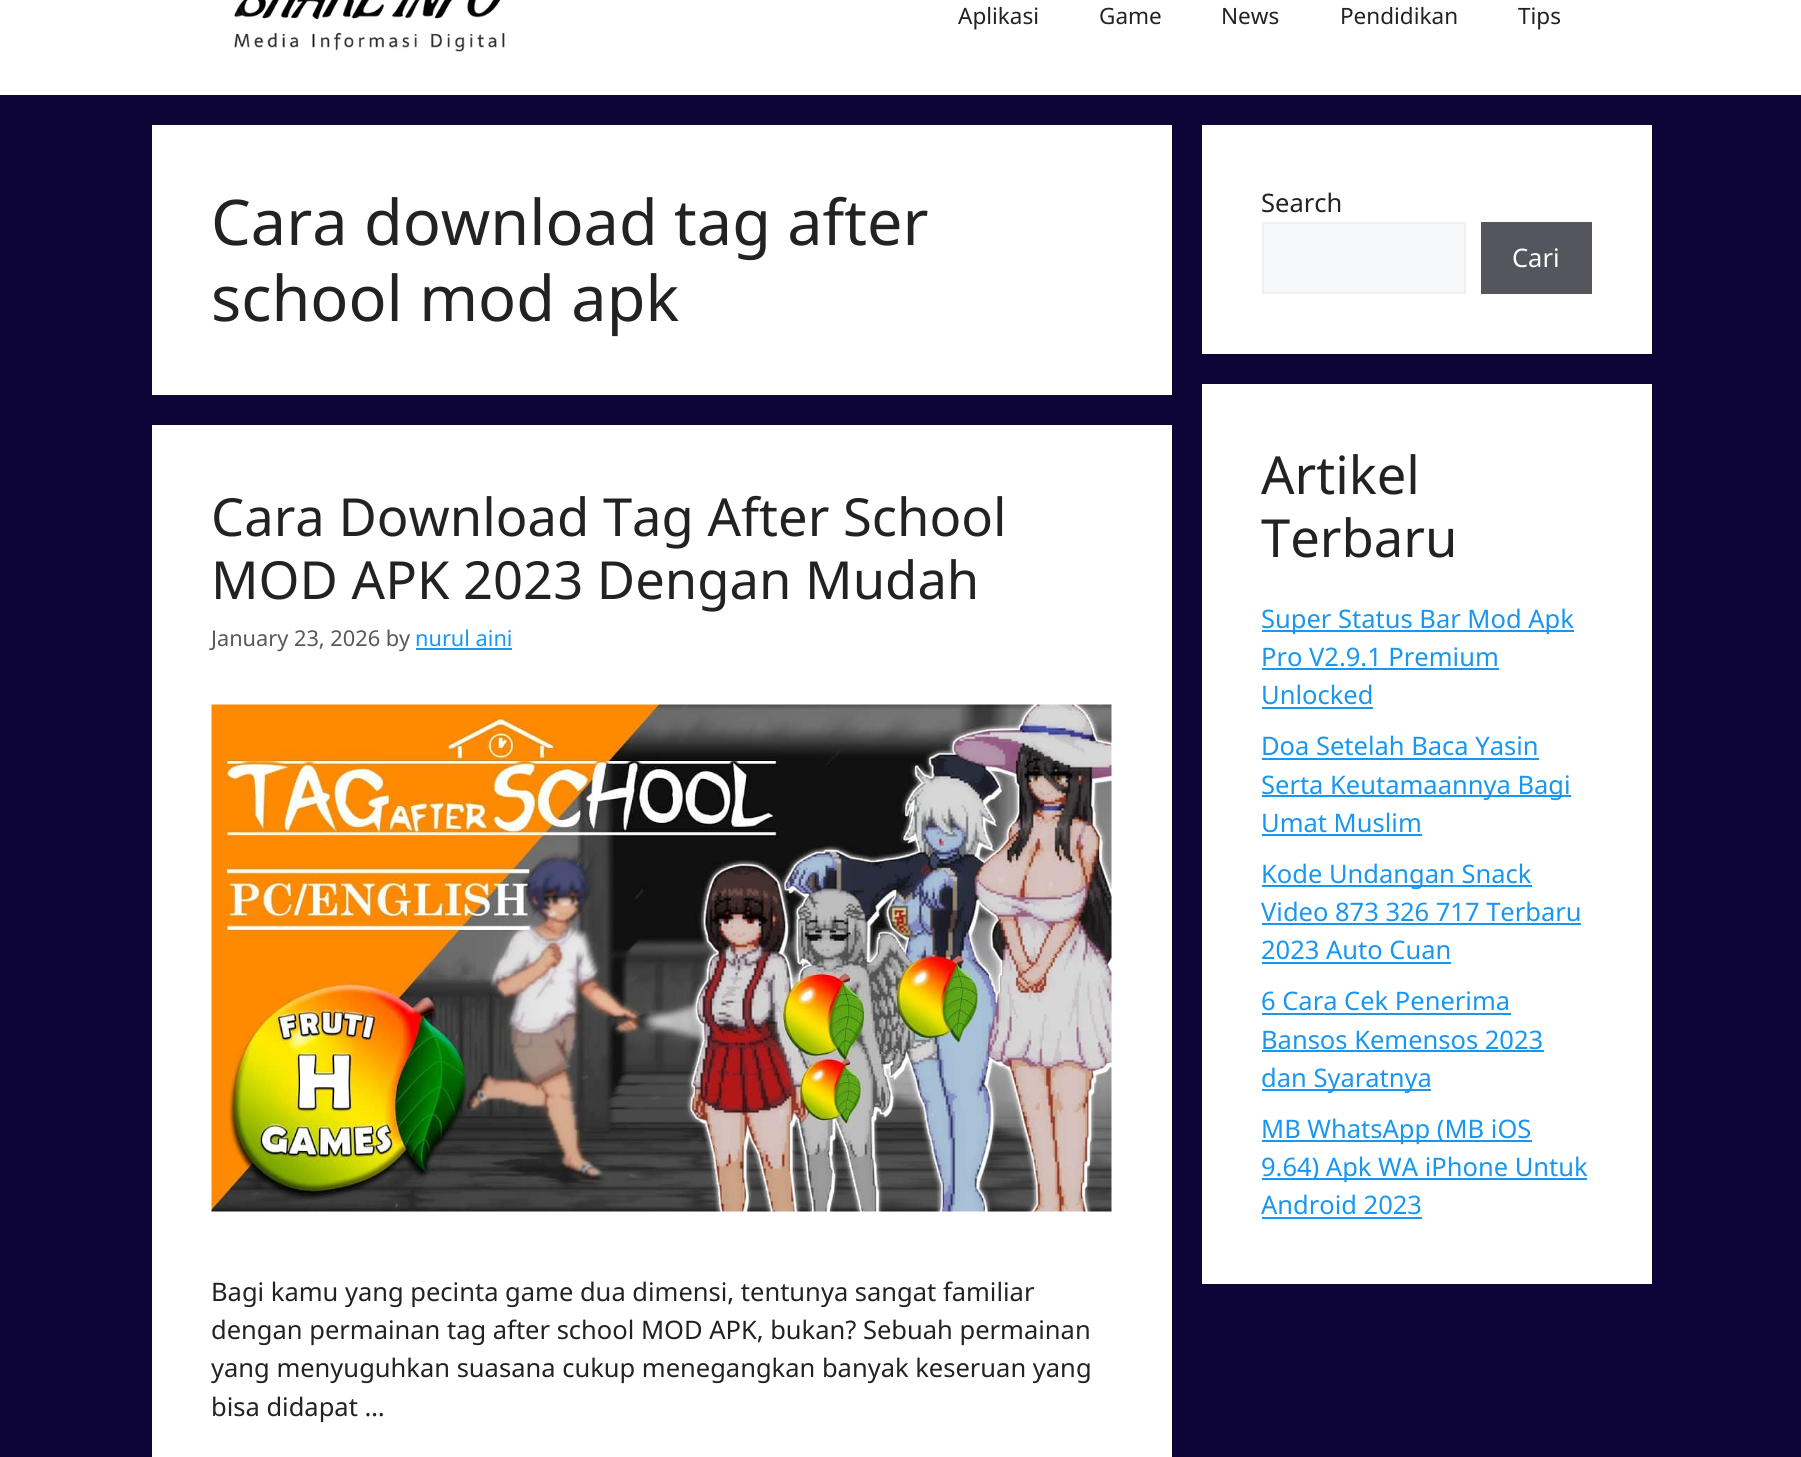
import math
import cairocffi as cairo

surface = cairo.ImageSurface(cairo.FORMAT_RGB24, 1801, 1457)
ctx = cairo.Context(surface)
options = cairo.FontOptions()
options.set_hint_metrics(cairo.HINT_METRICS_OFF)
options.set_hint_style(cairo.HINT_STYLE_NONE)
ctx.set_font_options(options)
ctx.set_miter_limit(4)


def rgb(r, g, b):
    ctx.set_source_rgb(r / 255, g / 255, b / 255)


def face(family, size, italic, bold):
    ctx.select_font_face(family, cairo.FONT_SLANT_ITALIC if italic else cairo.FONT_SLANT_NORMAL, cairo.FONT_WEIGHT_BOLD if bold else cairo.FONT_WEIGHT_NORMAL)
    ctx.set_font_size(size)


def label(x, y, s):
    ctx.move_to(x, y)
    ctx.show_text(s)


def rect(x, y, w, h):
    ctx.rectangle(x, y, w, h)
    ctx.fill()


def image(path, x, y, w, h):
    ctx.save()
    ctx.set_source_surface(cairo.ImageSurface.create_from_png(path), x, y)
    ctx.rectangle(x, y, w, h)
    ctx.fill()
    ctx.restore()


rgb(13, 5, 55)
ctx.paint()
rgb(255, 255, 255)
rect(0, 0, 1801, 95)
image('image0.png', 213, 0, 292, 65)
face('Noto Sans', 22.5, 0, 0)
rgb(34, 34, 34)
label(958, 24, 'Aplikasi')
label(1099, 24, 'Game')
label(1221, 24, 'News')
label(1340, 24, 'Pendidikan')
label(1518, 24, 'Tips')
rgb(255, 255, 255)
rect(152, 125, 1020, 270)
face('Noto Sans', 63, 0, 0)
rgb(34, 34, 34)
label(211, 245, 'Cara download tag after')
label(211, 321, 'school mod apk')
rgb(255, 255, 255)
rect(152, 425, 1020, 1032)
face('Noto Sans', 52.5, 0, 0)
rgb(34, 34, 34)
label(211, 536, 'Cara Download Tag After School')
label(211, 599, 'MOD APK 2023 Dengan Mudah')
face('Noto Sans', 21.75, 0, 0)
rgb(87, 87, 96)
label(211, 646, 'January 23, 2026 by')
rgb(25, 150, 240)
label(415, 646, 'nurul aini')
rect(416, 648, 96, 2)
image('image1.png', 211, 704, 901, 508)
face('Noto Sans', 25.5, 0, 0)
rgb(34, 34, 34)
label(211, 1301, 'Bagi kamu yang pecinta game dua dimensi, tentunya sangat familiar')
label(211, 1339, 'dengan permainan tag after school MOD APK, bukan? Sebuah permainan')
label(211, 1377, 'yang menyuguhkan suasana cukup menegangkan banyak keseruan yang')
label(211, 1416, 'bisa didapat …')
rgb(255, 255, 255)
rect(1202, 125, 450, 229)
rgb(34, 34, 34)
label(1261, 212, 'Search')
rgb(247, 248, 249)
ctx.rectangle(1263, 223, 202, 70)
ctx.fill_preserve()
rgb(240, 240, 240)
ctx.stroke()
rgb(85, 85, 94)
rect(1481, 222, 111, 72)
rgb(255, 255, 255)
label(1512, 267, 'Cari')
rect(1202, 384, 450, 900)
face('Noto Sans', 52.5, 0, 0)
rgb(34, 34, 34)
label(1261, 494, 'Artikel')
label(1261, 557, 'Terbaru')
rgb(25, 150, 240)
rect(1262, 630, 312, 2)
face('Noto Sans', 25.5, 0, 0)
label(1261, 628, 'Super Status Bar Mod Apk')
label(1261, 666, 'Pro V2.9.1 Premium')
rect(1262, 668, 237, 2)
label(1261, 704, 'Unlocked')
rect(1262, 707, 111, 2)
label(1261, 755, 'Doa Setelah Baca Yasin')
rect(1262, 758, 277, 2)
rect(1262, 795, 309, 2)
label(1261, 794, 'Serta Keutamaannya Bagi')
label(1261, 832, 'Umat Muslim')
rect(1262, 834, 160, 2)
rect(1262, 885, 270, 2)
label(1261, 883, 'Kode Undangan Snack')
label(1261, 921, 'Video 873 326 717 Terbaru')
rect(1262, 923, 319, 2)
label(1261, 959, '2023 Auto Cuan')
rect(1262, 962, 189, 2)
label(1261, 1010, '6 Cara Cek Penerima')
rect(1262, 1013, 249, 2)
label(1261, 1049, 'Bansos Kemensos 2023')
rect(1262, 1050, 282, 2)
rect(1262, 1089, 169, 2)
label(1261, 1087, 'dan Syaratnya')
rect(1262, 1140, 270, 2)
label(1261, 1138, 'MB WhatsApp (MB iOS')
rect(1262, 1178, 325, 2)
label(1261, 1176, '9.64) Apk WA iPhone Untuk')
label(1261, 1214, 'Android 2023')
rect(1262, 1217, 160, 2)
surface.write_to_png('render.png')
